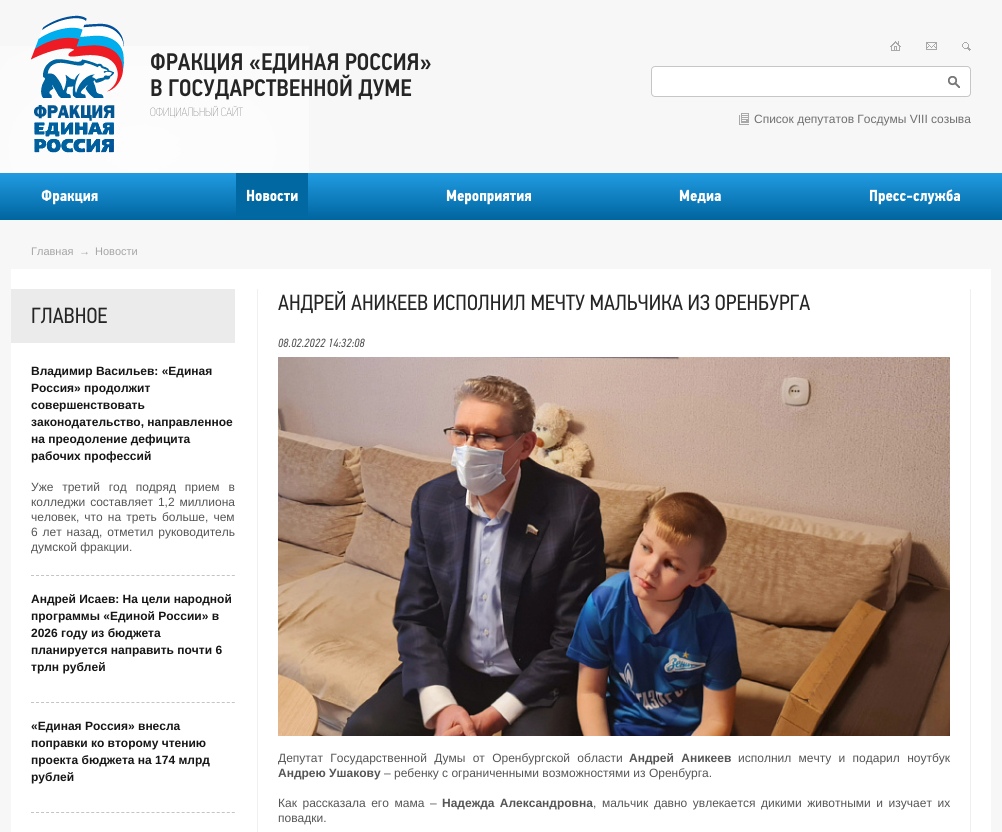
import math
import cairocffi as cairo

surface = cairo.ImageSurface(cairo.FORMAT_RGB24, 1002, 832)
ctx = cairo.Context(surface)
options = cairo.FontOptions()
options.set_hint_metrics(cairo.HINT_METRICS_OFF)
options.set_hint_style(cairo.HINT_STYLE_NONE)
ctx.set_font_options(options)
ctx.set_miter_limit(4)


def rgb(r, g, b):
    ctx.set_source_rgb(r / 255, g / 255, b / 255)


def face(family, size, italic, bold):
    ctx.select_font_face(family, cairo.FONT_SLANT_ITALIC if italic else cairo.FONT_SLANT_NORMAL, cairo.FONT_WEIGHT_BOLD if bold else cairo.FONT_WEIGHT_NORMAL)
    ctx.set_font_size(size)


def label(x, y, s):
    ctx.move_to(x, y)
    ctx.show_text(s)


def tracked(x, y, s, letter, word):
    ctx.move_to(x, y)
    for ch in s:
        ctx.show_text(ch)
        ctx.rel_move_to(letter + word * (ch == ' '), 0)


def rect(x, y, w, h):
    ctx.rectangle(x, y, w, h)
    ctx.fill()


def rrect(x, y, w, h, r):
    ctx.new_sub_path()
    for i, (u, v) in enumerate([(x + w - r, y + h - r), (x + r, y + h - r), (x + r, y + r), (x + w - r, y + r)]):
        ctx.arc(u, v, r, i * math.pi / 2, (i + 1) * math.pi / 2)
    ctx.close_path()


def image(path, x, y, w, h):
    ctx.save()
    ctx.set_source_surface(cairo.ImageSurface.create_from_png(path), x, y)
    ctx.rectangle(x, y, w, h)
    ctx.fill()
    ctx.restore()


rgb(247, 247, 247)
ctx.paint()
image('image0.png', 0, 46, 309, 127)
image('image1.png', 31, 15, 93, 138)
face('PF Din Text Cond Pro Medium', 24, 0, 0)
rgb(38, 37, 37)
label(150, 70, 'ФРАКЦИЯ «ЕДИНАЯ РОССИЯ»')
label(150, 96, 'В ГОСУДАРСТВЕННОЙ ДУМЕ')
face('PF Din Text Cond Pro Thin', 12, 0, 0)
rgb(112, 112, 112)
label(150, 116, 'ОФИЦИАЛЬНЫЙ САЙТ')
image('image2.png', 890, 41, 11, 10)
image('image3.png', 926, 42, 11, 8)
image('image4.png', 962, 42, 9, 9)
rgb(255, 255, 255)
rrect(651.5, 66.5, 319, 30, 3.5)
ctx.fill_preserve()
rgb(198, 198, 198)
ctx.set_line_width(1)
ctx.stroke()
image('image5.png', 948, 76, 12, 12)
image('image6.png', 739, 113, 10, 12)
face('Liberation Sans', 12, 0, 0)
rgb(112, 112, 112)
label(754, 123, 'Список депутатов Госдумы VIII созыва')
gradient = cairo.LinearGradient(501, 220, 501, 173)
gradient.add_color_stop_rgba(0, 0, 0.396, 0.624, 1)
gradient.add_color_stop_rgba(1, 0.129, 0.608, 0.886, 1)
ctx.set_source(gradient)
rect(0, 173, 1002, 47)
face('PF Din Text Cond Pro', 16, 0, 1)
rgb(255, 255, 255)
label(41, 201, 'Фракция')
rgb(2, 104, 162)
rect(236, 173, 72, 43)
rgb(255, 255, 255)
label(246, 201, 'Новости')
label(446, 201, 'Мероприятия')
label(679, 201, 'Медиа')
label(869, 201, 'Пресс-служба')
face('Liberation Sans', 11, 0, 0)
rgb(165, 165, 165)
label(31, 255, 'Главная')
label(79, 255, '→')
label(95, 255, 'Новости')
rgb(255, 255, 255)
rect(11, 269, 980, 563)
rgb(235, 235, 235)
rect(11, 289, 224, 54)
face('PF Din Text Cond Pro', 22, 0, 0)
rgb(38, 37, 37)
label(31, 323, 'ГЛАВНОЕ')
ctx.new_path()
ctx.move_to(31, 575.5)
ctx.line_to(235, 575.5)
rgb(196, 196, 196)
ctx.set_dash([3, 2.02])
ctx.stroke()
face('Liberation Sans', 12, 0, 1)
rgb(22, 22, 22)
label(31, 375, 'Владимир Васильев: «Единая')
label(31, 392, 'Россия» продолжит')
label(31, 409, 'совершенствовать')
label(31, 426, 'законодательство, направленное')
label(31, 443, 'на преодоление дефицита')
label(31, 460, 'рабочих профессий')
face('Liberation Sans', 12, 0, 0)
rgb(85, 85, 85)
tracked(31, 491, 'Уже третий год подряд прием в', 0, 5.5)
tracked(31, 506, 'колледжи составляет 1,2 миллиона', 0, 1.5)
tracked(31, 521, 'человек, что на треть больше, чем', 0, 1.75)
tracked(31, 536, '6 лет назад, отметил руководитель', 0, 1.5)
label(31, 551, 'думской фракции.')
ctx.new_path()
ctx.move_to(31, 702.5)
ctx.line_to(235, 702.5)
rgb(196, 196, 196)
ctx.stroke()
face('Liberation Sans', 12, 0, 1)
rgb(22, 22, 22)
label(31, 603, 'Андрей Исаев: На цели народной')
label(31, 620, 'программы «Единой России» в')
label(31, 637, '2026 году из бюджета')
label(31, 654, 'планируется направить почти 6')
label(31, 671, 'трлн рублей')
ctx.new_path()
ctx.move_to(31, 812.5)
ctx.line_to(235, 812.5)
rgb(196, 196, 196)
ctx.stroke()
rgb(22, 22, 22)
label(31, 730, '«Единая Россия» внесла')
label(31, 747, 'поправки ко второму чтению')
label(31, 764, 'проекта бюджета на 174 млрд')
label(31, 781, 'рублей')
rgb(240, 240, 240)
rect(970, 289, 1, 543)
rect(257, 289, 1, 543)
face('PF Din Text Cond Pro', 22, 0, 0)
rgb(38, 37, 37)
label(278, 310, 'АНДРЕЙ АНИКЕЕВ ИСПОЛНИЛ МЕЧТУ МАЛЬЧИКА ИЗ ОРЕНБУРГА')
face('PF Din Text Cond Pro', 12, 1, 0)
rgb(85, 85, 85)
label(278, 347, '08.02.2022 14:32:08')
image('image7.png', 278, 357, 672, 379)
face('Liberation Sans', 12, 0, 0)
tracked(278, 762, 'Депутат Государственной Думы от Оренбургской области', 0, 4)
face('Liberation Sans', 12, 0, 1)
tracked(629, 762, 'Андрей Аникеев', 0, 4)
face('Liberation Sans', 12, 0, 0)
tracked(738, 762, 'исполнил мечту и подарил ноутбук', 0, 4)
face('Liberation Sans', 12, 0, 1)
label(278, 777, 'Андрею Ушакову')
face('Liberation Sans', 12, 0, 0)
label(384, 777, '– ребенку с ограниченными возможностями из Оренбурга.')
tracked(278, 807, 'Как рассказала его мама –', 0, 2.25)
face('Liberation Sans', 12, 0, 1)
tracked(442, 807, 'Надежда Александровна', 0, 2)
face('Liberation Sans', 12, 0, 0)
tracked(593, 807, ', мальчик давно увлекается дикими животными и изучает их', 0, 2.25)
label(278, 822, 'повадки.')
surface.write_to_png('render.png')
